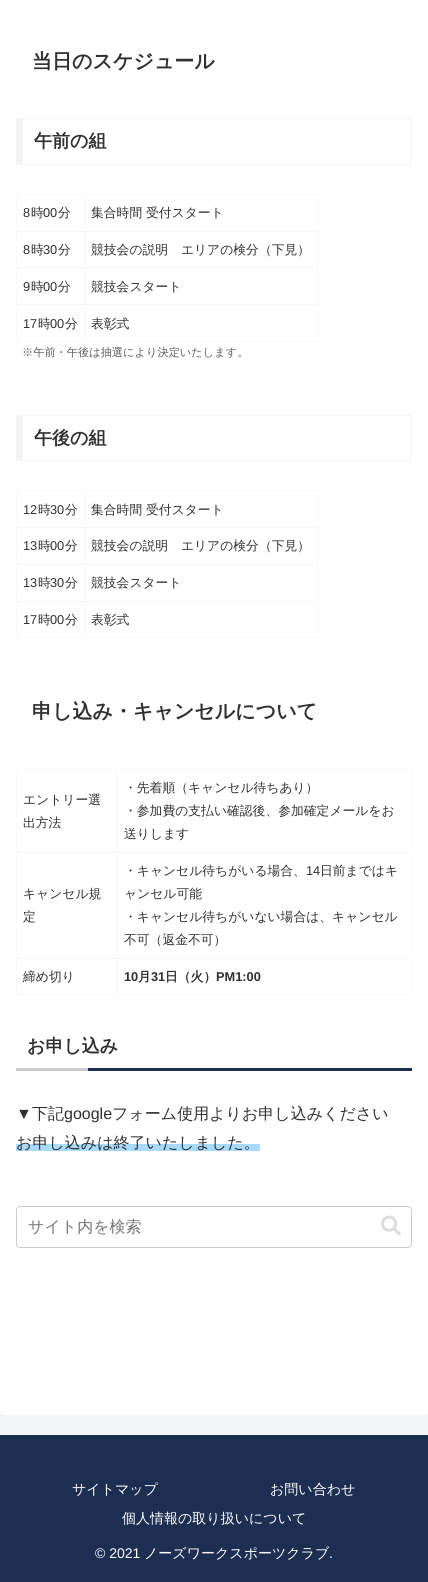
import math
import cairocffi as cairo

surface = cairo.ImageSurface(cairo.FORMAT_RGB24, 428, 1582)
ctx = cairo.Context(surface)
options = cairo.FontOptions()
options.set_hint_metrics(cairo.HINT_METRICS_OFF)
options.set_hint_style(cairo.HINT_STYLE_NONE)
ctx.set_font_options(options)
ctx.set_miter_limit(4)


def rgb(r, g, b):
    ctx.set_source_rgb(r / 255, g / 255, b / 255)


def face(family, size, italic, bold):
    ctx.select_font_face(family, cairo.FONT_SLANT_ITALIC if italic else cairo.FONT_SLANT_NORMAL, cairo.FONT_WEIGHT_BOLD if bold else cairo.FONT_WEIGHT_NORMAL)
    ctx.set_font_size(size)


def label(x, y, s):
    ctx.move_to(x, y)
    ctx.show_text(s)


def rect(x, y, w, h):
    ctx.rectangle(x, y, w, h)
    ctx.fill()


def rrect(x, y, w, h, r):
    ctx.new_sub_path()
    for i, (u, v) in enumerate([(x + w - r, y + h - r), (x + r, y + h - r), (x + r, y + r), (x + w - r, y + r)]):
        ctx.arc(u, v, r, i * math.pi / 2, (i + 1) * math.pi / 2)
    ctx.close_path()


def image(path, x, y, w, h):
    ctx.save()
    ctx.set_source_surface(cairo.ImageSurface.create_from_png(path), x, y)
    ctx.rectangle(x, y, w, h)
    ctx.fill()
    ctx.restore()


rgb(244, 245, 247)
ctx.paint()
rgb(255, 255, 255)
rrect(0, -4, 428, 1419, 4)
ctx.fill()
rgb(250, 250, 250)
rect(16, 769, 1, 226)
rect(16, 769, 101, 1)
rgb(247, 247, 247)
rect(16, 769, 1, 1)
rect(116, 769, 1, 84)
rgb(250, 250, 250)
rect(411, 769, 1, 190)
rgb(247, 247, 247)
rect(16, 852, 101, 1)
rect(116, 852, 1, 107)
rgb(250, 250, 250)
rect(16, 994, 101, 1)
rgb(247, 247, 247)
rect(16, 994, 1, 1)
rect(16, 958, 101, 1)
rect(116, 958, 1, 37)
rgb(250, 250, 250)
rect(116, 994, 296, 1)
rgb(245, 245, 245)
rect(116, 994, 1, 1)
rgb(250, 250, 250)
rect(411, 958, 1, 37)
rgb(247, 247, 247)
rect(411, 994, 1, 1)
rgb(250, 250, 250)
rect(16, 490, 1, 148)
rect(16, 490, 69, 1)
rgb(247, 247, 247)
rect(16, 490, 1, 1)
rect(84, 490, 1, 38)
rgb(250, 250, 250)
rect(317, 490, 1, 112)
rgb(247, 247, 247)
rect(16, 527, 69, 1)
rect(84, 527, 1, 38)
rect(16, 564, 69, 1)
rect(84, 564, 1, 38)
rgb(250, 250, 250)
rect(16, 637, 69, 1)
rgb(247, 247, 247)
rect(16, 637, 1, 1)
rect(16, 601, 69, 1)
rect(84, 601, 1, 37)
rgb(250, 250, 250)
rect(84, 637, 234, 1)
rgb(245, 245, 245)
rect(84, 637, 1, 1)
rgb(250, 250, 250)
rect(317, 601, 1, 37)
rgb(247, 247, 247)
rect(317, 637, 1, 1)
rgb(250, 250, 250)
rect(16, 194, 1, 148)
rect(16, 194, 69, 1)
rgb(247, 247, 247)
rect(16, 194, 1, 1)
rect(84, 194, 1, 38)
rgb(250, 250, 250)
rect(317, 194, 1, 111)
rgb(247, 247, 247)
rect(16, 231, 69, 1)
rect(84, 231, 1, 37)
rect(16, 267, 69, 1)
rect(84, 267, 1, 38)
rgb(250, 250, 250)
rect(16, 341, 69, 1)
rgb(247, 247, 247)
rect(16, 341, 1, 1)
rect(16, 304, 69, 1)
rect(84, 304, 1, 38)
rgb(250, 250, 250)
rect(84, 341, 234, 1)
rgb(245, 245, 245)
rect(84, 341, 1, 1)
rgb(250, 250, 250)
rect(317, 304, 1, 38)
rgb(247, 247, 247)
rect(317, 341, 1, 1)
face('WenQuanYi Zen Hei', 20, 0, 1)
rgb(48, 48, 48)
label(32, 68, '当日のスケジュール')
rgb(244, 244, 244)
rect(16, 118, 396, 1)
rect(411, 118, 1, 47)
rect(16, 164, 396, 1)
rect(16, 118, 7, 47)
face('WenQuanYi Zen Hei', 18, 0, 1)
rgb(48, 48, 48)
label(34, 147, '午前の組')
face('Liberation Sans', 12.8, 0, 0)
label(23, 217, '8')
face('WenQuanYi Zen Hei Medium', 12.8, 0, 0)
label(31, 217, '時')
face('Liberation Sans', 12.8, 0, 0)
label(43, 217, '00')
face('WenQuanYi Zen Hei Medium', 12.8, 0, 0)
label(58, 217, '分')
rgb(250, 250, 250)
rect(84, 194, 234, 1)
rgb(245, 245, 245)
rect(84, 194, 1, 1)
rgb(247, 247, 247)
rect(317, 194, 1, 1)
rgb(48, 48, 48)
label(91, 217, '集合時間 受付スタート')
face('Liberation Sans', 12.8, 0, 0)
label(23, 254, '8')
face('WenQuanYi Zen Hei Medium', 12.8, 0, 0)
label(31, 254, '時')
face('Liberation Sans', 12.8, 0, 0)
label(43, 254, '30')
face('WenQuanYi Zen Hei Medium', 12.8, 0, 0)
label(58, 254, '分')
rgb(247, 247, 247)
rect(84, 231, 234, 1)
rgb(48, 48, 48)
label(91, 254, '競技会の説明　エリアの検分（下見）')
face('Liberation Sans', 12.8, 0, 0)
label(23, 291, '9')
face('WenQuanYi Zen Hei Medium', 12.8, 0, 0)
label(31, 291, '時')
face('Liberation Sans', 12.8, 0, 0)
label(43, 291, '00')
face('WenQuanYi Zen Hei Medium', 12.8, 0, 0)
label(58, 291, '分')
rgb(247, 247, 247)
rect(84, 267, 234, 1)
rgb(48, 48, 48)
label(91, 291, '競技会スタート')
face('Liberation Sans', 12.8, 0, 0)
label(23, 328, '17')
face('WenQuanYi Zen Hei Medium', 12.8, 0, 0)
label(38, 328, '時')
face('Liberation Sans', 12.8, 0, 0)
label(50, 328, '00')
face('WenQuanYi Zen Hei Medium', 12.8, 0, 0)
label(65, 328, '分')
rgb(247, 247, 247)
rect(84, 304, 234, 1)
rgb(48, 48, 48)
label(91, 328, '表彰式')
face('WenQuanYi Zen Hei Medium', 11.2, 0, 0)
rgb(92, 92, 92)
label(22, 356, '※午前・午後は抽選により決定いたします。')
rgb(244, 244, 244)
rect(16, 415, 396, 1)
rect(411, 415, 1, 46)
rect(16, 460, 396, 1)
rect(16, 415, 7, 46)
face('WenQuanYi Zen Hei', 18, 0, 1)
rgb(48, 48, 48)
label(34, 444, '午後の組')
face('Liberation Sans', 12.8, 0, 0)
label(23, 514, '12')
face('WenQuanYi Zen Hei Medium', 12.8, 0, 0)
label(38, 514, '時')
face('Liberation Sans', 12.8, 0, 0)
label(50, 514, '30')
face('WenQuanYi Zen Hei Medium', 12.8, 0, 0)
label(65, 514, '分')
rgb(250, 250, 250)
rect(84, 490, 234, 1)
rgb(245, 245, 245)
rect(84, 490, 1, 1)
rgb(247, 247, 247)
rect(317, 490, 1, 1)
rgb(48, 48, 48)
label(91, 514, '集合時間 受付スタート')
face('Liberation Sans', 12.8, 0, 0)
label(23, 550, '13')
face('WenQuanYi Zen Hei Medium', 12.8, 0, 0)
label(38, 550, '時')
face('Liberation Sans', 12.8, 0, 0)
label(50, 550, '00')
face('WenQuanYi Zen Hei Medium', 12.8, 0, 0)
label(65, 550, '分')
rgb(247, 247, 247)
rect(84, 527, 234, 1)
rgb(48, 48, 48)
label(91, 550, '競技会の説明　エリアの検分（下見）')
face('Liberation Sans', 12.8, 0, 0)
label(23, 587, '13')
face('WenQuanYi Zen Hei Medium', 12.8, 0, 0)
label(38, 587, '時')
face('Liberation Sans', 12.8, 0, 0)
label(50, 587, '30')
face('WenQuanYi Zen Hei Medium', 12.8, 0, 0)
label(65, 587, '分')
rgb(247, 247, 247)
rect(84, 564, 234, 1)
rgb(48, 48, 48)
label(91, 587, '競技会スタート')
face('Liberation Sans', 12.8, 0, 0)
label(23, 624, '17')
face('WenQuanYi Zen Hei Medium', 12.8, 0, 0)
label(38, 624, '時')
face('Liberation Sans', 12.8, 0, 0)
label(50, 624, '00')
face('WenQuanYi Zen Hei Medium', 12.8, 0, 0)
label(65, 624, '分')
rgb(247, 247, 247)
rect(84, 601, 234, 1)
rgb(48, 48, 48)
label(91, 624, '表彰式')
face('WenQuanYi Zen Hei', 20, 0, 1)
label(32, 718, '申し込み・キャンセルについて')
face('WenQuanYi Zen Hei Medium', 12.8, 0, 0)
label(23, 804, 'エントリー選')
label(23, 827, '出方法')
rgb(250, 250, 250)
rect(116, 769, 296, 1)
rgb(245, 245, 245)
rect(116, 769, 1, 1)
rgb(247, 247, 247)
rect(411, 769, 1, 1)
rgb(48, 48, 48)
label(124, 792, '・先着順（キャンセル待ちあり）')
label(124, 815, '・参加費の支払い確認後、参加確定メールをお')
label(124, 838, '送りします')
label(23, 898, 'キャンセル規')
label(23, 921, '定')
rgb(247, 247, 247)
rect(116, 852, 296, 1)
rgb(48, 48, 48)
label(124, 875, '・キャンセル待ちがいる場合、')
face('Liberation Sans', 12.8, 0, 0)
label(306, 875, '14')
face('WenQuanYi Zen Hei Medium', 12.8, 0, 0)
label(320, 875, '日前まではキ')
label(124, 898, 'ャンセル可能')
label(124, 921, '・キャンセル待ちがいない場合は、キャンセル')
label(124, 944, '不可（返金不可）')
label(23, 981, '締め切り')
rgb(247, 247, 247)
rect(116, 958, 296, 1)
face('Liberation Sans', 12.8, 0, 1)
rgb(48, 48, 48)
label(124, 981, '10')
face('WenQuanYi Zen Hei', 12.8, 0, 1)
label(138, 981, '月')
face('Liberation Sans', 12.8, 0, 1)
label(151, 981, '31')
face('WenQuanYi Zen Hei', 12.8, 0, 1)
label(165, 981, '日（火）')
face('Liberation Sans', 12.8, 0, 1)
label(216, 981, 'PM1:00')
rgb(30, 46, 83)
rect(88, 1068, 324, 3)
face('WenQuanYi Zen Hei', 18, 0, 1)
rgb(48, 48, 48)
label(27, 1052, 'お申し込み')
rgb(204, 204, 204)
rect(16, 1068, 72, 3)
face('Liberation Sans', 16, 0, 0)
rgb(48, 48, 48)
label(16, 1119, '▼')
face('WenQuanYi Zen Hei Medium', 16, 0, 0)
label(32, 1119, '下記')
face('Liberation Sans', 16, 0, 0)
label(64, 1119, 'google')
face('WenQuanYi Zen Hei Medium', 16, 0, 0)
label(112, 1119, 'フォーム使用よりお申し込みください')
rgb(168, 218, 251)
rect(16, 1144, 244, 7)
rgb(48, 48, 48)
label(16, 1148, 'お申し込みは終了いたしました。')
rrect(16.5, 1206.5, 395, 41, 3.5)
rgb(204, 204, 204)
ctx.set_line_width(1)
ctx.stroke()
rgb(117, 117, 117)
label(28, 1232, 'サイト内を検索')
image('image0.png', 381, 1215, 20, 21)
rgb(29, 46, 83)
rect(0, 1435, 428, 147)
face('WenQuanYi Zen Hei Medium', 14, 0, 0)
rgb(255, 255, 255)
label(72, 1494, 'サイトマップ')
label(270, 1494, 'お問い合わせ')
label(122, 1523, '個人情報の取り扱いについて')
face('Liberation Sans', 14, 0, 0)
label(95, 1558, '© 2021')
face('WenQuanYi Zen Hei Medium', 14, 0, 0)
label(144, 1558, 'ノーズワークスポーツクラブ')
face('Liberation Sans', 14, 0, 0)
label(329, 1558, '.')
surface.write_to_png('render.png')
